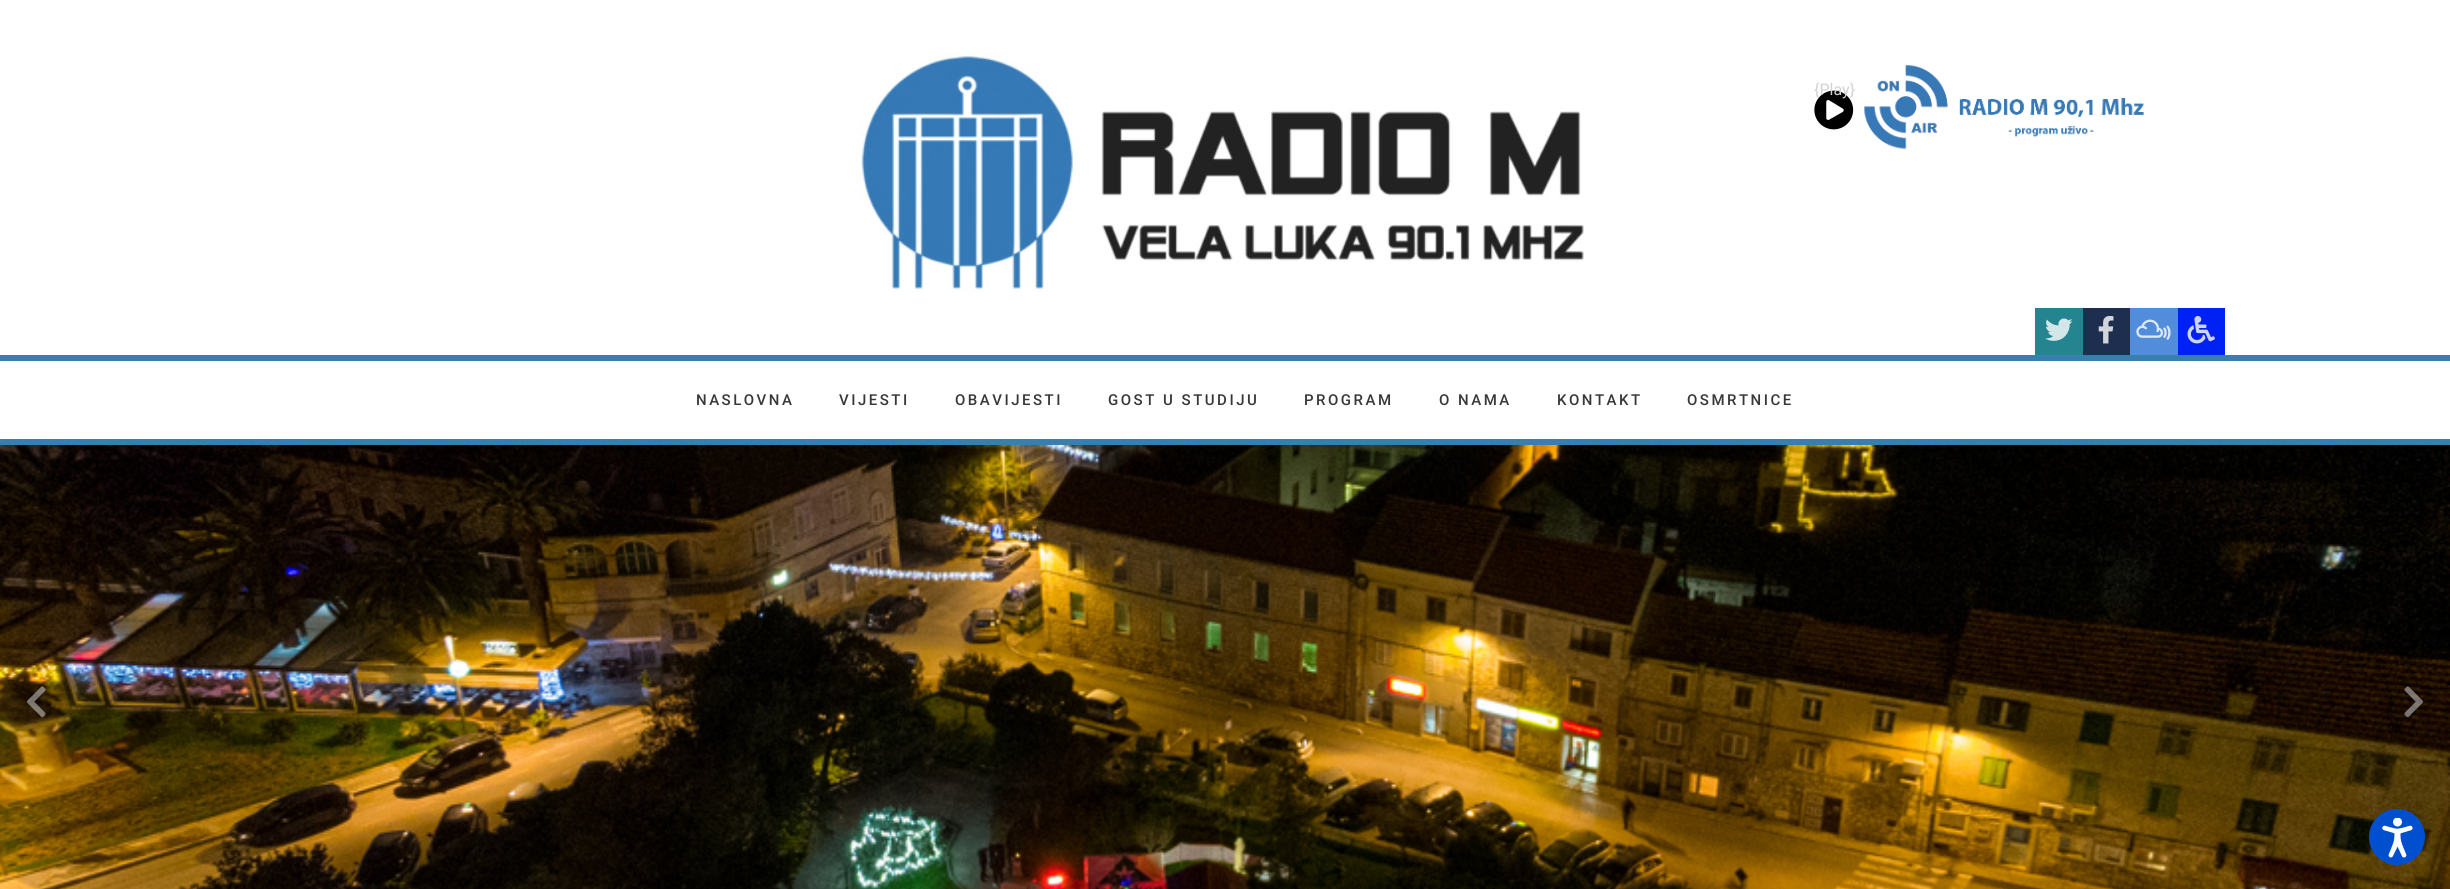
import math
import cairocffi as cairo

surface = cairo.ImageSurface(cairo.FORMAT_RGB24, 2450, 889)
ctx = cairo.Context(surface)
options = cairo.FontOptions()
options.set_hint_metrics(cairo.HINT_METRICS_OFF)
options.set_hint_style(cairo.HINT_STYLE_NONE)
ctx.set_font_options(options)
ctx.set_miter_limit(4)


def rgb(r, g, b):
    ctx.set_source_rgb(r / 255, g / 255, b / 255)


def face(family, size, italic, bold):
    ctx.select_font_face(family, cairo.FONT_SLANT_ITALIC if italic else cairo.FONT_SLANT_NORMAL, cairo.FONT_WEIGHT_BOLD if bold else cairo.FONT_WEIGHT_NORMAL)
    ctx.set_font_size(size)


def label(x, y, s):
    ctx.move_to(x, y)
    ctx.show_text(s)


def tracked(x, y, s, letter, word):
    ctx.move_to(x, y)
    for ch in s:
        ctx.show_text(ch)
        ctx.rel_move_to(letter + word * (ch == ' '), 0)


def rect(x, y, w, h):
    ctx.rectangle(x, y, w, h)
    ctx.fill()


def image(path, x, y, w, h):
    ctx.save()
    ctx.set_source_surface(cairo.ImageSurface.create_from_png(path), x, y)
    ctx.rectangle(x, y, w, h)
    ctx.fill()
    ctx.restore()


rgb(255, 255, 255)
ctx.paint()
image('image0.png', 855, 50, 729, 242)
image('image1.png', 1814, 90, 40, 40)
face('Roboto', 16, 0, 0)
rgb(210, 210, 210)
label(1814, 95, '{Play}')
image('image2.png', 1864, 65, 280, 85)
rgb(36, 133, 144)
rect(2035, 308, 48, 47)
image('image3.png', 2045, 318, 28, 23)
rgb(30, 46, 79)
rect(2083, 308, 47, 47)
image('image4.png', 2098, 315, 16, 29)
rgb(81, 141, 219)
rect(2130, 308, 48, 47)
image('image5.png', 2136, 319, 35, 21)
rgb(0, 33, 243)
rect(2178, 308, 47, 47)
image('image6.png', 2187, 315, 28, 29)
rgb(56, 127, 173)
rect(0, 355, 2450, 6)
face('Roboto Medium', 15, 0, 0)
rgb(56, 56, 56)
tracked(696, 405, 'NASLOVNA', 2.5, 0)
tracked(839, 405, 'VIJESTI', 2.5, 0)
tracked(955, 405, 'OBAVIJESTI', 2.5, 0)
tracked(1108, 405, 'GOST U STUDIJU', 2.5, 0)
tracked(1304, 405, 'PROGRAM', 2.5, 0)
tracked(1439, 405, 'O NAMA', 2.5, 0)
tracked(1557, 405, 'KONTAKT', 2.5, 0)
tracked(1687, 405, 'OSMRTNICE', 2.5, 0)
rgb(56, 127, 173)
rect(0, 439, 2450, 6)
image('image7.png', 0, 445, 2450, 444)
image('image8.png', 27, 686, 19, 32)
image('image9.png', 2404, 686, 19, 32)
rgb(0, 79, 206)
ctx.arc(2397, 837, 28, 0, 2 * math.pi)
ctx.fill()
image('image10.png', 2382, 818, 31, 40)
surface.write_to_png('render.png')
